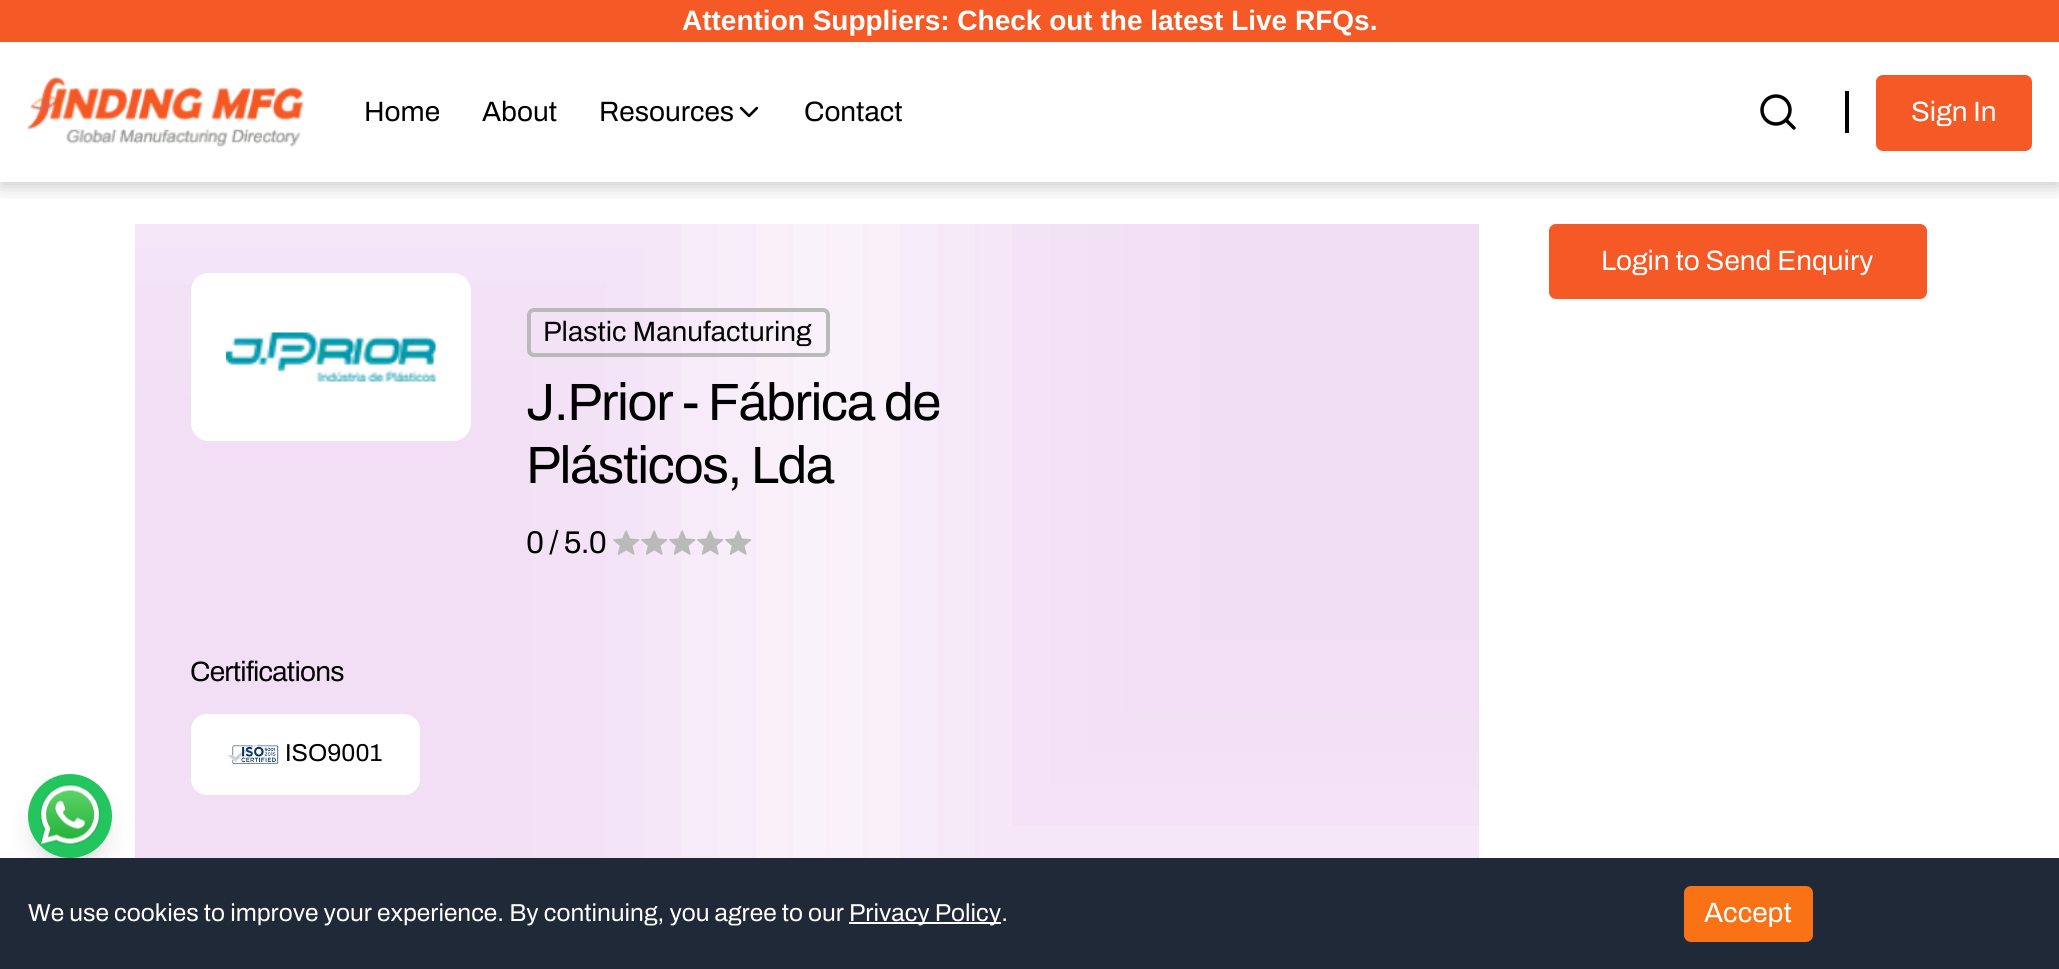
import math
import cairocffi as cairo

surface = cairo.ImageSurface(cairo.FORMAT_RGB24, 2059, 969)
ctx = cairo.Context(surface)
options = cairo.FontOptions()
options.set_hint_metrics(cairo.HINT_METRICS_OFF)
options.set_hint_style(cairo.HINT_STYLE_NONE)
ctx.set_font_options(options)
ctx.set_miter_limit(4)


def rgb(r, g, b):
    ctx.set_source_rgb(r / 255, g / 255, b / 255)


def face(family, size, italic, bold):
    ctx.select_font_face(family, cairo.FONT_SLANT_ITALIC if italic else cairo.FONT_SLANT_NORMAL, cairo.FONT_WEIGHT_BOLD if bold else cairo.FONT_WEIGHT_NORMAL)
    ctx.set_font_size(size)


def label(x, y, s):
    ctx.move_to(x, y)
    ctx.show_text(s)


def tracked(x, y, s, letter, word):
    ctx.move_to(x, y)
    for ch in s:
        ctx.show_text(ch)
        ctx.rel_move_to(letter + word * (ch == ' '), 0)


def rect(x, y, w, h):
    ctx.rectangle(x, y, w, h)
    ctx.fill()


def rrect(x, y, w, h, r):
    ctx.new_sub_path()
    for i, (u, v) in enumerate([(x + w - r, y + h - r), (x + r, y + h - r), (x + r, y + r), (x + w - r, y + r)]):
        ctx.arc(u, v, r, i * math.pi / 2, (i + 1) * math.pi / 2)
    ctx.close_path()


def soft_shadow(x, y, w, h, r, blur, alpha):
    ctx.push_group_with_content(cairo.CONTENT_ALPHA)
    ctx.set_operator(cairo.OPERATOR_SOURCE)
    for i in range(15, -16, -2):
        e = blur * i / 6
        if min(w, h) + 2 * e > 0:
            ctx.set_source_rgba(0, 0, 0, alpha * math.erfc((i - 1) / 8.5) / 2)
            rrect(x - e, y - e, w + 2 * e, h + 2 * e, max(0, min(r + e + blur * .6, min(w, h) / 2 + e)))
            ctx.fill()
    ctx.mask(ctx.pop_group())


def image(path, x, y, w, h):
    ctx.save()
    ctx.set_source_surface(cairo.ImageSurface.create_from_png(path), x, y)
    ctx.rectangle(x, y, w, h)
    ctx.fill()
    ctx.restore()


rgb(255, 255, 255)
ctx.paint()
ctx.save()
ctx.rectangle(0, 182, 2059, 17)
ctx.clip()
rgb(0, 0, 0)
soft_shadow(0, 5, 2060, 182, 0, 9, 0.2)
ctx.restore()
ctx.save()
ctx.rectangle(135, 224, 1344, 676)
ctx.clip()
rgb(242, 223, 245)
soft_shadow(-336, 154, 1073, 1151, 0, 112, 1)
ctx.restore()
rgb(245, 89, 37)
rrect(1549, 224, 378, 75, 7)
ctx.fill()
ctx.save()
ctx.rectangle(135, 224, 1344, 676)
ctx.clip()
rgb(187, 91, 202)
soft_shadow(919, -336, 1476, 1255, 0, 112, 0.2)
ctx.restore()
rect(0, 0, 2059, 42)
face('Liberation Sans', 28, 0, 1)
rgb(255, 255, 255)
label(682, 30, 'Attention Suppliers: Check out the latest Live RFQs.')
image('image0.png', 28, 77, 276, 71)
face('Archivo SemiBold', 28, 0, 0)
rgb(0, 0, 0)
label(364, 121, 'Home')
label(482, 121, 'About')
label(599, 121, 'Resources')
image('image1.png', 739, 106, 20, 12)
label(804, 121, 'Contact')
ctx.new_path()
ctx.arc(1776, 110, 14, 0, 2 * math.pi)
ctx.set_line_width(3.5)
ctx.stroke()
ctx.new_path()
ctx.move_to(1794, 128)
ctx.line_to(1786, 120)
ctx.set_line_cap(cairo.LINE_CAP_ROUND)
ctx.set_line_join(cairo.LINE_JOIN_ROUND)
ctx.stroke()
rect(1845, 91, 4, 42)
rgb(245, 89, 37)
rrect(1876, 75, 156, 76, 7)
ctx.fill()
rgb(255, 255, 255)
label(1911, 121, 'Sign In')
label(1601, 270, 'Login to Send Enquiry')
rrect(191, 273, 280, 168, 18)
ctx.fill()
image('image2.png', 225, 332, 211, 50)
rrect(529, 310, 299, 45, 5)
rgb(186, 186, 186)
ctx.set_line_width(4)
ctx.set_line_cap(cairo.LINE_CAP_BUTT)
ctx.set_line_join(cairo.LINE_JOIN_MITER)
ctx.stroke()
rgb(6, 6, 6)
label(543, 341, 'Plastic Manufacturing')
face('Archivo SemiBold', 52.5, 0, 0)
rgb(0, 0, 0)
tracked(526, 420, 'J.Prior - Fábrica de', -1.3, 0)
tracked(526, 483, 'Plásticos, Lda', -1.3, 0)
face('Archivo SemiBold', 31.5, 0, 0)
tracked(526, 553, '0 / 5.0', -0.75, 0)
image('image3.png', 613, 530, 27, 25)
image('image4.png', 641, 530, 27, 25)
image('image5.png', 669, 530, 27, 25)
image('image6.png', 697, 530, 27, 25)
image('image7.png', 725, 530, 27, 25)
face('Archivo SemiBold', 28, 0, 0)
tracked(190, 681, 'Certifications', -0.75, 0)
rgb(255, 255, 255)
rrect(191, 714, 229, 81, 16)
ctx.fill()
image('image8.png', 227, 743, 52, 24)
face('Archivo SemiBold', 24.5, 0, 0)
rgb(0, 0, 0)
label(285, 761, 'ISO9001')
rgb(0, 0, 0)
soft_shadow(35, 788, 70, 70, 35, 5, 0.1)
soft_shadow(33, 796, 74, 74, 37, 13, 0.1)
rgb(34, 197, 94)
ctx.arc(70, 816, 42, 0, 2 * math.pi)
ctx.fill()
image('image9.png', 40, 784, 60, 61)
rgb(31, 41, 55)
rect(0, 858, 2059, 111)
rgb(255, 255, 255)
label(28, 921, 'We use cookies to improve your experience. By continuing, you agree to our')
rect(849, 922, 152, 2)
label(849, 921, 'Privacy Policy.')
rgb(249, 115, 22)
rrect(1684, 886, 129, 56, 7)
ctx.fill()
face('Archivo SemiBold', 28, 0, 0)
rgb(255, 255, 255)
label(1704, 922, 'Accept')
surface.write_to_png('render.png')
